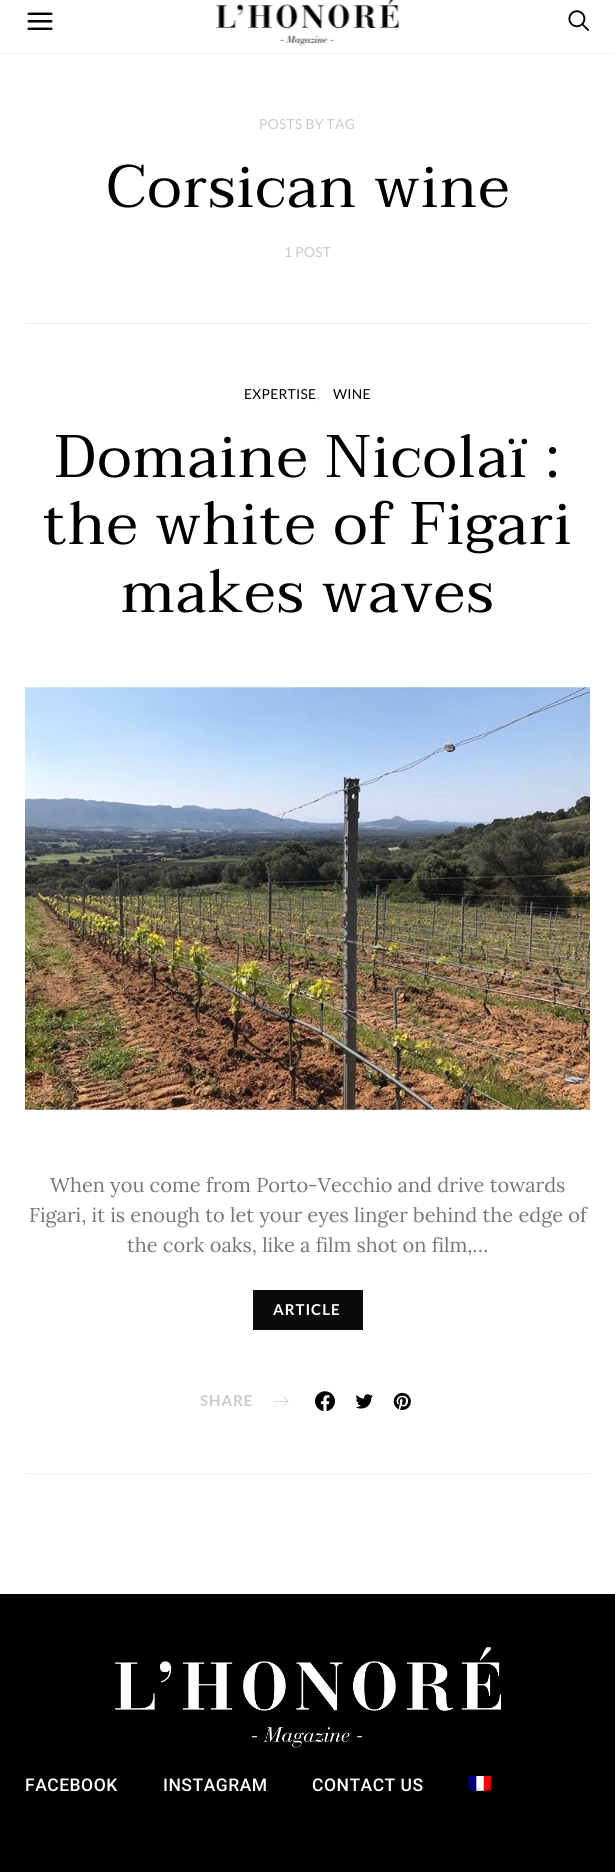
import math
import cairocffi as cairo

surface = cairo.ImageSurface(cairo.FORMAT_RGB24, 615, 1872)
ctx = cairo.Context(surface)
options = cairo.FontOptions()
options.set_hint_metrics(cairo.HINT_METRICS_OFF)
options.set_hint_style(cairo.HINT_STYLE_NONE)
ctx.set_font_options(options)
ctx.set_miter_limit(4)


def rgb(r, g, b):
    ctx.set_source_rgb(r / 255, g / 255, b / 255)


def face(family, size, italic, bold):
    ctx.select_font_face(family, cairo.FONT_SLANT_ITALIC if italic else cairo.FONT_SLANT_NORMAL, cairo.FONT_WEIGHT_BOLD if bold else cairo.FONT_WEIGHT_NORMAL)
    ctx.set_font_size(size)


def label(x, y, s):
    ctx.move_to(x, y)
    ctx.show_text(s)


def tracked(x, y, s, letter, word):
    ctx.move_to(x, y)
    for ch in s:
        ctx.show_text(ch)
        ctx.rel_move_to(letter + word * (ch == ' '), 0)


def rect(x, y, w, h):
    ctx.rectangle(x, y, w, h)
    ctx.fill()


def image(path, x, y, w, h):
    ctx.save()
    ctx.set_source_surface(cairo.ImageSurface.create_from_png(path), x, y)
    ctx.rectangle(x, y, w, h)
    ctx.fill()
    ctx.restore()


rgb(255, 255, 255)
ctx.paint()
rgb(238, 238, 238)
rect(0, 53, 615, 1)
image('image0.png', 27, 12, 26, 18)
image('image1.png', 216, 0, 184, 46)
image('image2.png', 568, 10, 21, 21)
face('Lato', 13.75, 0, 0)
rgb(201, 201, 201)
tracked(259, 129, 'POSTS BY TAG', 0.3, 0)
face('Taviraj', 60, 0, 0)
rgb(0, 0, 0)
tracked(106, 207, 'Corsican wine', 1.25, 0)
face('Lato', 13.75, 0, 0)
rgb(201, 201, 201)
tracked(284, 257, '1 POST', 0.3, 0)
rgb(233, 236, 239)
rect(25, 323, 565, 1)
rgb(0, 0, 0)
tracked(244, 399, 'EXPERTISE', 0.3, 0)
rgb(201, 201, 201)
tracked(317, 399, ',', 0.3, 0)
rgb(0, 0, 0)
tracked(333, 399, 'WINE', 0.3, 0)
face('Taviraj', 60, 0, 0)
tracked(55, 477, 'Domaine Nicolaï :', 1.25, 0)
tracked(43, 544, 'the white of Figari', 1.25, 0)
tracked(121, 612, 'makes waves', 1.25, 0)
image('image3.png', 25, 687, 565, 423)
face('Lora', 20, 0, 0)
rgb(119, 119, 119)
label(50, 1192, 'When you come from Porto-Vecchio and drive towards')
label(29, 1222, 'Figari, it is enough to let your eyes linger behind the edge of')
label(127, 1252, 'the cork oaks, like a film shot on film,…')
rgb(10, 10, 10)
rect(253, 1290, 110, 40)
face('Lato', 15, 0, 1)
rgb(255, 255, 255)
tracked(273, 1315, 'ARTICLE', 1, 0)
rgb(201, 201, 201)
tracked(200, 1406, 'SHARE', 1, 0)
image('image4.png', 274, 1396, 15, 11)
image('image5.png', 315, 1391, 20, 21)
image('image6.png', 355, 1394, 18, 15)
image('image7.png', 393, 1392, 18, 18)
rgb(238, 238, 238)
rect(25, 1473, 565, 1)
rgb(0, 0, 0)
rect(0, 1594, 615, 278)
image('image8.png', 115, 1647, 386, 101)
face('Roboto Medium', 17.5, 0, 0)
rgb(255, 255, 255)
tracked(25, 1791, 'FACEBOOK', 0.5, 0)
tracked(163, 1791, 'INSTAGRAM', 0.5, 0)
tracked(312, 1791, 'CONTACT US', 0.5, 0)
image('image9.png', 468, 1776, 24, 15)
surface.write_to_png('render.png')
